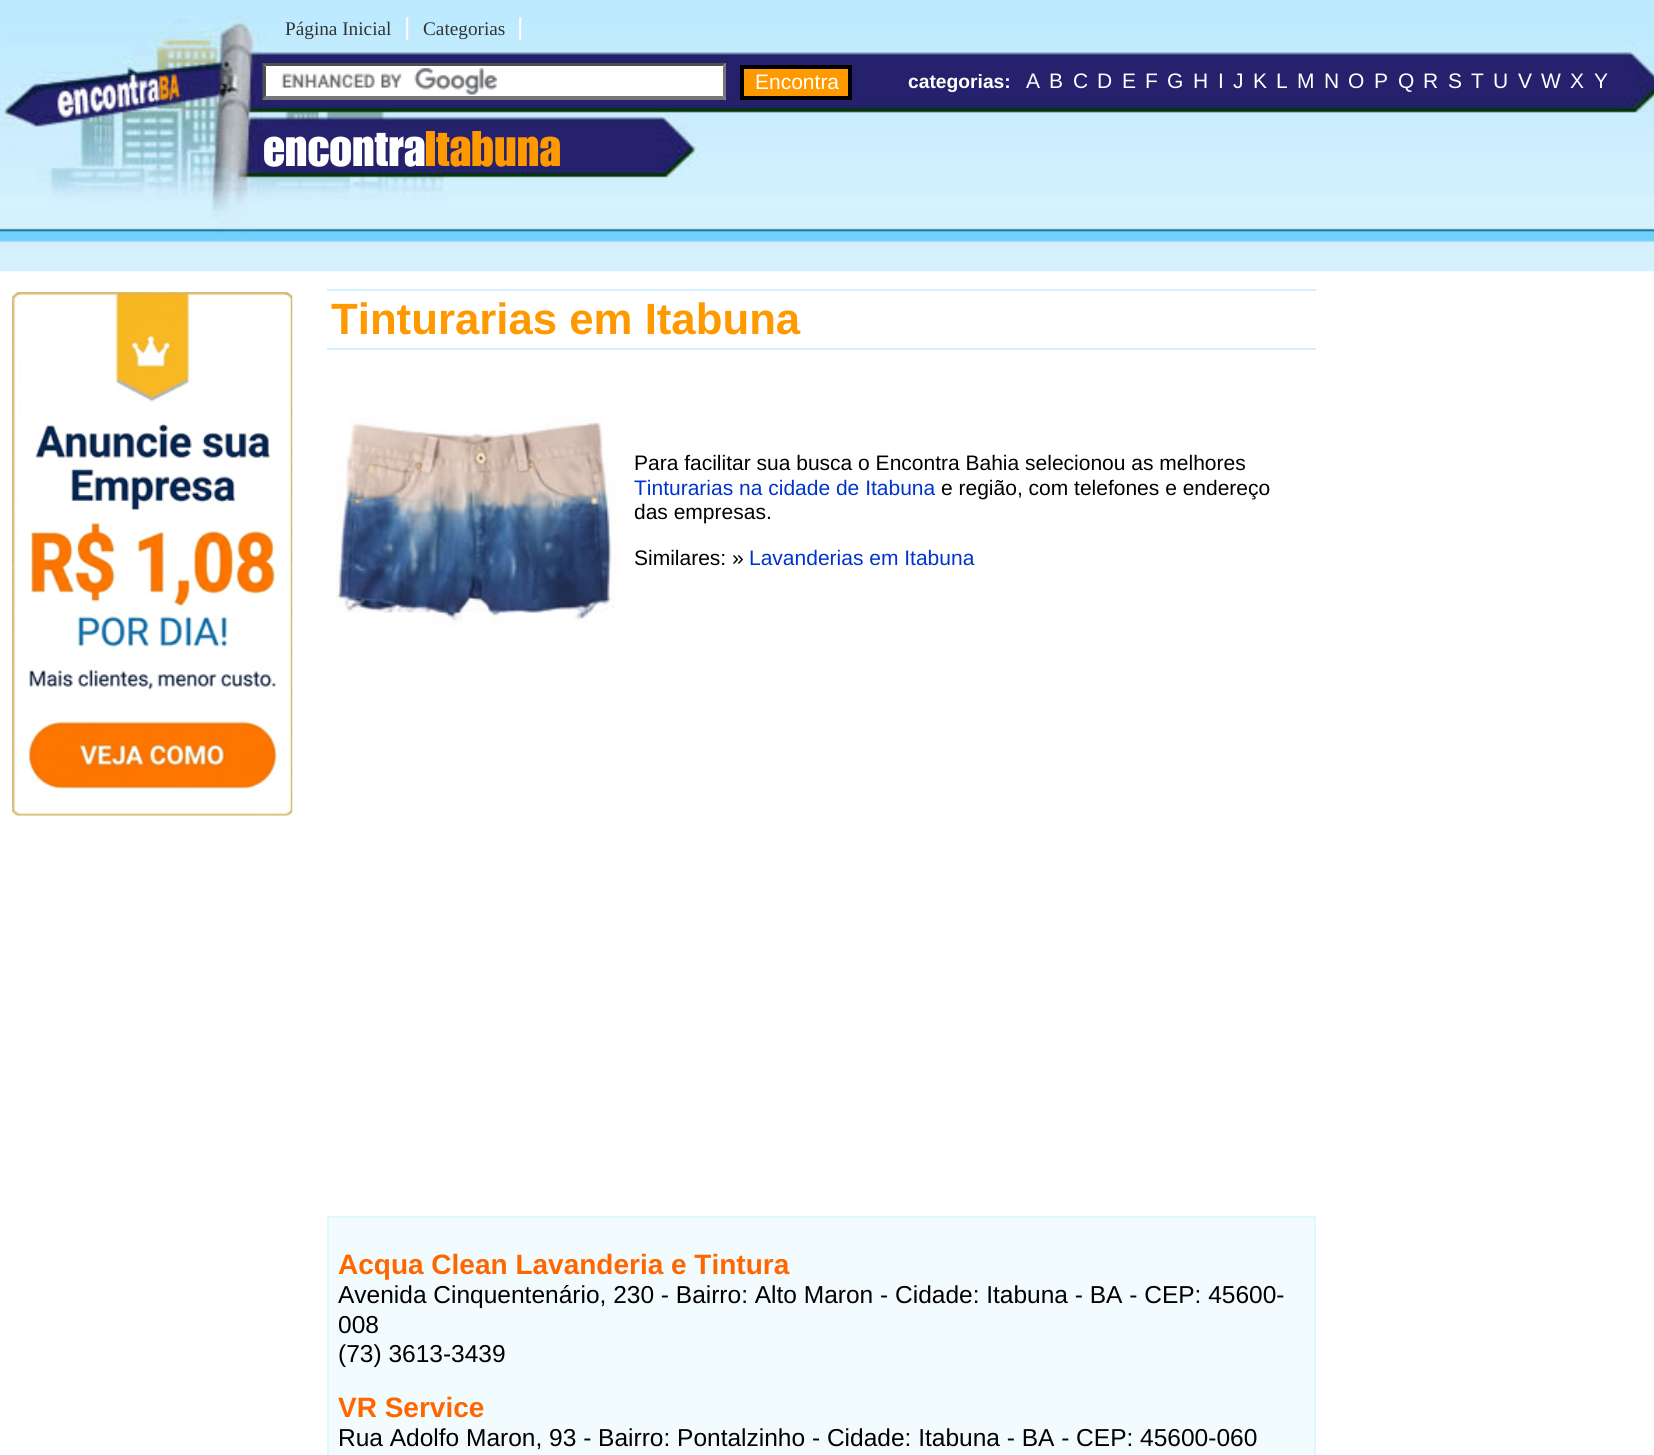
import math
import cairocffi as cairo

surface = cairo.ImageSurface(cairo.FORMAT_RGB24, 1654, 1455)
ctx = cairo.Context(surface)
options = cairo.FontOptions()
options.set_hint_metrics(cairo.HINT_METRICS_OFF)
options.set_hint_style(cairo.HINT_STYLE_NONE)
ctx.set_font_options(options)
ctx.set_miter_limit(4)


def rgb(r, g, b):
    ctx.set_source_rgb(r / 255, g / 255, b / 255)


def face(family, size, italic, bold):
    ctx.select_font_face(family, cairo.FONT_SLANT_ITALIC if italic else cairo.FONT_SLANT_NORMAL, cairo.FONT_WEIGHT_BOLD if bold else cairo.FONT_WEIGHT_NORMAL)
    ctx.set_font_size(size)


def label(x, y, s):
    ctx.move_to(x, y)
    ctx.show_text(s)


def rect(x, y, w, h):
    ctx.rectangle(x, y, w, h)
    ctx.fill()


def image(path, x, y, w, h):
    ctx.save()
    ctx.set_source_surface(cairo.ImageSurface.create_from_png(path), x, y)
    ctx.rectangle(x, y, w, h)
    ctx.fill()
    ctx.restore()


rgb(255, 255, 255)
ctx.paint()
image('image0.png', 0, 0, 1654, 272)
image('image1.png', 0, 14, 1654, 222)
face('Liberation Serif', 19.25, 0, 0)
rgb(51, 51, 51)
label(285, 35, 'Página Inicial')
face('Liberation Sans', 24.5, 0, 0)
rgb(255, 255, 255)
label(404, 35, '|')
face('Liberation Serif', 19.25, 0, 0)
rgb(51, 51, 51)
label(423, 35, 'Categorias')
face('Liberation Sans', 24.5, 0, 0)
rgb(255, 255, 255)
label(517, 35, '|')
rect(263, 63, 463, 37)
image('image2.png', 281, 68, 216, 27)
rgb(79, 79, 79)
ctx.new_path()
ctx.move_to(262, 63)
ctx.line_to(726, 63)
ctx.line_to(723, 66)
ctx.line_to(266, 66)
ctx.close_path()
ctx.fill()
rgb(118, 118, 118)
ctx.new_path()
ctx.move_to(726, 63)
ctx.line_to(726, 100)
ctx.line_to(723, 96)
ctx.line_to(723, 66.5)
ctx.close_path()
ctx.fill()
ctx.new_path()
ctx.move_to(726, 100)
ctx.line_to(262, 100)
ctx.line_to(266, 96)
ctx.line_to(723, 96)
ctx.close_path()
ctx.fill()
rgb(79, 79, 79)
ctx.new_path()
ctx.move_to(262.5, 100)
ctx.line_to(262.5, 63)
ctx.line_to(266, 66.5)
ctx.line_to(266, 96)
ctx.close_path()
ctx.fill()
rgb(255, 153, 0)
ctx.rectangle(742, 67, 108, 31)
ctx.fill_preserve()
rgb(0, 0, 0)
ctx.set_line_width(4)
ctx.stroke()
face('Liberation Sans', 21, 0, 0)
rgb(255, 255, 255)
label(755, 89, 'Encontra')
face('Liberation Sans', 19.25, 0, 1)
label(908, 88, 'categorias:')
face('Liberation Sans', 21, 0, 0)
label(1026, 88, 'A')
label(1049, 88, 'B')
label(1073, 88, 'C')
label(1097, 88, 'D')
label(1122, 88, 'E')
label(1145, 88, 'F')
label(1167, 88, 'G')
label(1193, 88, 'H')
label(1218, 88, 'I')
label(1233, 88, 'J')
label(1253, 88, 'K')
label(1276, 88, 'L')
label(1297, 88, 'M')
label(1324, 88, 'N')
label(1348, 88, 'O')
label(1374, 88, 'P')
label(1398, 88, 'Q')
label(1423, 88, 'R')
label(1448, 88, 'S')
label(1471, 88, 'T')
label(1493, 88, 'U')
label(1518, 88, 'V')
label(1541, 88, 'W')
label(1570, 88, 'X')
label(1594, 88, 'Y')
face('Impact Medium', 49, 0, 0)
label(263, 166, 'encontra')
rgb(255, 153, 0)
label(425, 166, 'Itabuna')
image('image3.png', 12, 292, 281, 524)
rgb(210, 240, 255)
rect(327, 289, 989, 2)
rect(327, 348, 989, 2)
face('Liberation Sans', 43.75, 0, 1)
rgb(255, 153, 0)
label(331, 334, 'Tinturarias em Itabuna')
image('image4.png', 336, 417, 280, 209)
face('Liberation Sans', 21, 0, 0)
rgb(0, 0, 0)
label(634, 470, 'Para facilitar sua busca o Encontra Bahia selecionou as melhores')
rgb(0, 51, 204)
label(634, 495, 'Tinturarias na cidade de Itabuna')
rgb(0, 0, 0)
label(941, 495, 'e região, com telefones e endereço')
label(634, 519, 'das empresas.')
label(634, 565, 'Similares: »')
rgb(0, 51, 204)
label(749, 565, 'Lavanderias em Itabuna')
rgb(242, 252, 255)
ctx.rectangle(328, 1217, 987, 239)
ctx.fill_preserve()
rgb(223, 248, 255)
ctx.set_line_width(2)
ctx.stroke()
face('Liberation Sans', 28, 0, 1)
rgb(255, 102, 0)
label(338, 1274, 'Acqua Clean Lavanderia e Tintura')
face('Liberation Sans', 24.5, 0, 0)
rgb(0, 0, 0)
label(338, 1303, 'Avenida Cinquentenário, 230 - Bairro: Alto Maron - Cidade: Itabuna - BA - CEP: 45600-')
label(338, 1333, '008')
label(338, 1362, '(73) 3613-3439')
face('Liberation Sans', 28, 0, 1)
rgb(255, 102, 0)
label(338, 1417, 'VR Service')
face('Liberation Sans', 24.5, 0, 0)
rgb(0, 0, 0)
label(338, 1446, 'Rua Adolfo Maron, 93 - Bairro: Pontalzinho - Cidade: Itabuna - BA - CEP: 45600-060')
surface.write_to_png('render.png')
